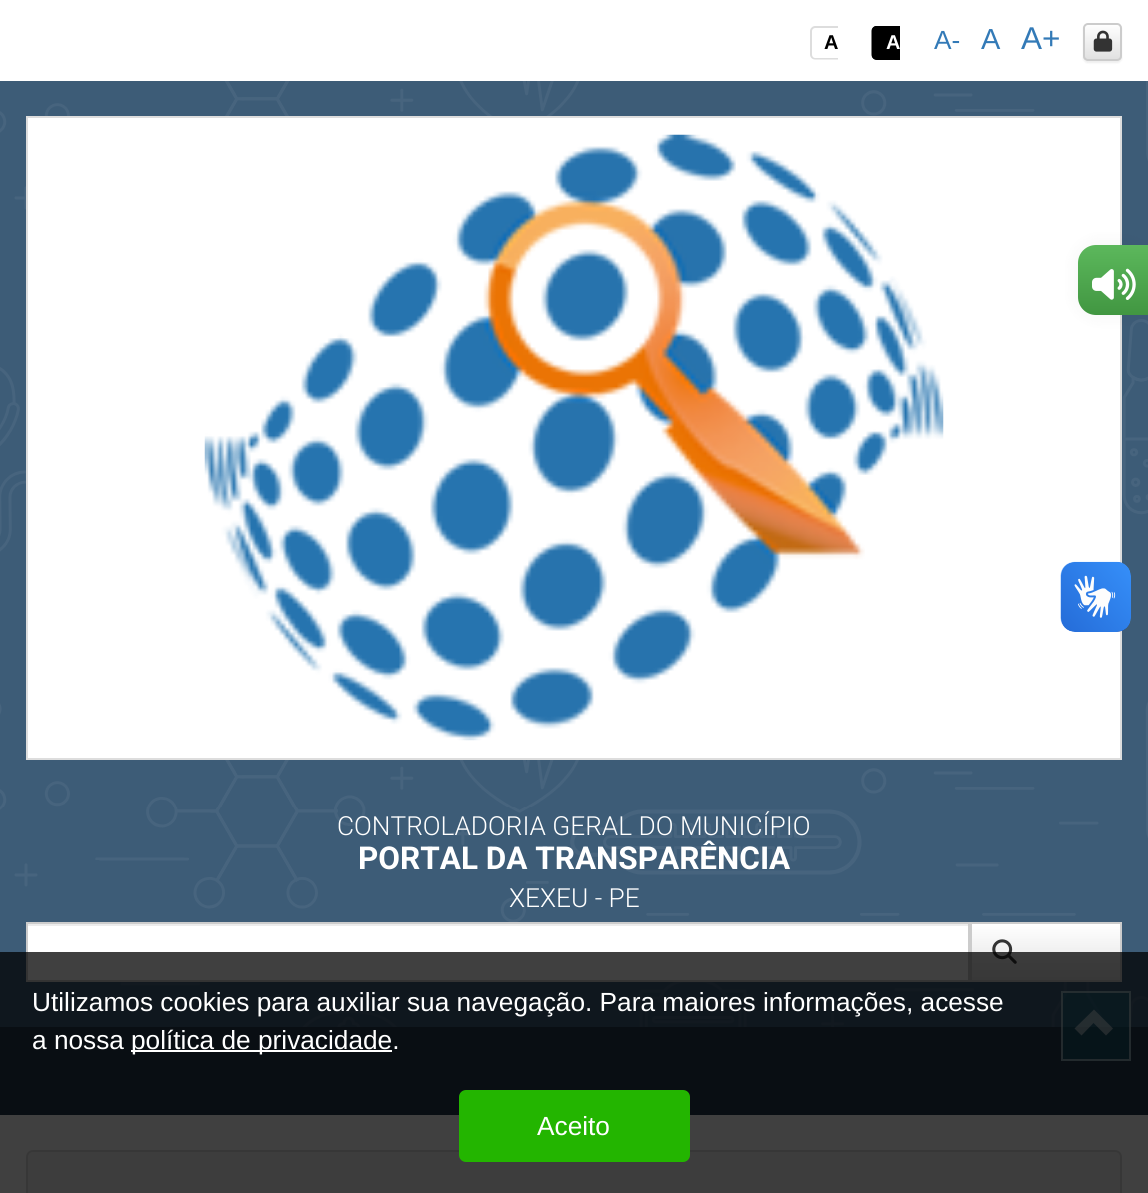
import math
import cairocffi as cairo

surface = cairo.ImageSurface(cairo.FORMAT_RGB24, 1148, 1193)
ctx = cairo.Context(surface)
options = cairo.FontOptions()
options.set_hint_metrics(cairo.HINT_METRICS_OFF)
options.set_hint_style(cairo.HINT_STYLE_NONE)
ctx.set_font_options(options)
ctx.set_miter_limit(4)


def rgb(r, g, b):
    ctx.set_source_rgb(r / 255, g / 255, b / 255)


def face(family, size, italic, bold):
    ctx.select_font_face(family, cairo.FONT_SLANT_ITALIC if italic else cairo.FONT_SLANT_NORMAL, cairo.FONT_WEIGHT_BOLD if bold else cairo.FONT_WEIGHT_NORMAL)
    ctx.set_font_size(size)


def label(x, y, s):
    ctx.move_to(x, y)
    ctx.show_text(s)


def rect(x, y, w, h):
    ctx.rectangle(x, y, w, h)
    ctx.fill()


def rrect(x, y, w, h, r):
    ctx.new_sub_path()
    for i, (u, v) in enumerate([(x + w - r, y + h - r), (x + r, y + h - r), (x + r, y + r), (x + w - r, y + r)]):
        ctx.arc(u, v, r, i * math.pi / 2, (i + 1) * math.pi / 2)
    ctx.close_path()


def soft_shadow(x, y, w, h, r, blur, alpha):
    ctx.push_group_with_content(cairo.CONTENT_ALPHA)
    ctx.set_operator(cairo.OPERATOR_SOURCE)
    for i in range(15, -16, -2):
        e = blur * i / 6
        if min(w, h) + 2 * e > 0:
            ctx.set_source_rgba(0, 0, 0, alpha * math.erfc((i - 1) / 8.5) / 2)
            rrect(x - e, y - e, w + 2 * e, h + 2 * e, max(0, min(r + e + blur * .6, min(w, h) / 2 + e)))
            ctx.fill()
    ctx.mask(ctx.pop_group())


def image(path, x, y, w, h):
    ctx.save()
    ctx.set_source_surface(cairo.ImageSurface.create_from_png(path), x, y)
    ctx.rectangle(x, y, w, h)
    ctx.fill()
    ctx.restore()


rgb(255, 255, 255)
ctx.paint()
rgb(221, 221, 221)
ctx.set_fill_rule(cairo.FILL_RULE_EVEN_ODD)
ctx.new_path()
ctx.move_to(815, 26)
ctx.line_to(838, 26)
ctx.line_to(838, 59.5)
ctx.line_to(815, 59.5)
ctx.curve_to(812.5, 59.5, 810, 57.5, 810, 54.5)
ctx.line_to(810, 31)
ctx.curve_to(810, 28.5, 812.5, 26, 815, 26)
ctx.close_path()
ctx.move_to(815, 28)
ctx.line_to(838, 28)
ctx.line_to(838, 58)
ctx.line_to(815, 58)
ctx.curve_to(813.5, 58, 812, 56.5, 812, 54.5)
ctx.line_to(812, 31)
ctx.curve_to(812, 29.5, 813.5, 28, 815, 28)
ctx.close_path()
ctx.fill()
face('Liberation Sans', 20, 0, 1)
rgb(0, 0, 0)
label(824, 49, 'A')
ctx.new_path()
ctx.move_to(877, 26)
ctx.line_to(900, 26)
ctx.line_to(900, 60)
ctx.line_to(877, 60)
ctx.curve_to(874, 60, 872, 58, 872, 55)
ctx.line_to(872, 31)
ctx.curve_to(872, 28, 874, 26, 877, 26)
ctx.close_path()
ctx.fill()
ctx.new_path()
ctx.move_to(876.5, 26)
ctx.line_to(899.5, 26)
ctx.line_to(899.5, 59.5)
ctx.line_to(876.5, 59.5)
ctx.curve_to(873.5, 59.5, 871.5, 57.5, 871.5, 54.5)
ctx.line_to(871.5, 31)
ctx.curve_to(871.5, 28.5, 873.5, 26, 876.5, 26)
ctx.close_path()
ctx.move_to(876.5, 28)
ctx.line_to(899.5, 28)
ctx.line_to(899.5, 58)
ctx.line_to(876.5, 58)
ctx.curve_to(874.5, 58, 873, 56.5, 873, 54.5)
ctx.line_to(873, 31)
ctx.curve_to(873, 29.5, 874.5, 28, 876.5, 28)
ctx.close_path()
ctx.fill()
rgb(255, 255, 255)
label(886, 49, 'A')
face('Liberation Sans', 26.25, 0, 0)
rgb(51, 122, 183)
label(934, 49, 'A-')
face('Liberation Sans', 29, 0, 0)
label(981, 49, 'A')
face('Liberation Sans', 31.5, 0, 0)
label(1021, 49, 'A+')
rgb(0, 0, 0)
soft_shadow(1083, 25, 39, 38, 5, 1, 0.07)
ctx.save()
ctx.set_fill_rule(cairo.FILL_RULE_WINDING)
rrect(1083, 23, 39, 38, 5)
ctx.clip()
gradient = cairo.LinearGradient(1103, 24, 1103, 60)
gradient.add_color_stop_rgba(0, 1, 1, 1, 1)
gradient.add_color_stop_rgba(1, 0.878, 0.878, 0.878, 1)
ctx.set_source(gradient)
rect(1083, 25, 39, 35)
ctx.restore()
rrect(1084, 24, 37, 36, 4)
rgb(204, 204, 204)
ctx.stroke()
image('image0.png', 1093, 30, 20, 22)
rgb(61, 92, 119)
rect(0, 81, 1148, 946)
image('image4.png', 0, 81, 1148, 946)
rgb(255, 255, 255)
ctx.rectangle(27, 117, 1094, 642)
ctx.fill_preserve()
rgb(221, 221, 221)
ctx.stroke()
rgb(0, 0, 0)
soft_shadow(1078, 245, 70, 70, 18, 9, 0.05)
gradient = cairo.LinearGradient(1113, 245, 1113, 315)
gradient.add_color_stop_rgba(0, 0.361, 0.722, 0.361, 1)
gradient.add_color_stop_rgba(1, 0.255, 0.588, 0.255, 1)
ctx.set_source(gradient)
ctx.new_path()
ctx.move_to(1096, 245)
ctx.line_to(1148, 245)
ctx.line_to(1148, 315)
ctx.line_to(1096, 315)
ctx.curve_to(1086, 315, 1078, 307, 1078, 297)
ctx.line_to(1078, 263)
ctx.curve_to(1078, 253, 1086, 245, 1096, 245)
ctx.close_path()
ctx.fill()
image('image1.png', 1092, 268, 44, 32)
rgb(35, 57, 76)
rect(0, 1027, 1148, 88)
ctx.set_source_rgba(0.035, 0.443, 0.537, 0.4)
rect(1061, 991, 70, 70)
ctx.rectangle(1062, 992, 68, 68)
ctx.set_source_rgba(1, 1, 1, 0.5)
ctx.stroke()
ctx.set_fill_rule(cairo.FILL_RULE_WINDING)
ctx.new_path()
ctx.move_to(1113, 1028.5)
ctx.line_to(1106, 1035.5)
ctx.line_to(1093.5, 1023)
ctx.line_to(1081.5, 1035.5)
ctx.line_to(1074.5, 1028.5)
ctx.line_to(1094, 1009.5)
ctx.close_path()
ctx.fill()
image('image2.png', 1060, 561, 71, 71)
image('image3.png', 1061, 562, 70, 70)
image('image5.png', 204, 134, 740, 607)
face('Roboto Light', 26.25, 0, 0)
rgb(255, 255, 255)
label(337, 835, 'CONTROLADORIA GERAL DO MUNICÍPIO')
face('Roboto', 31.5, 0, 1)
label(358, 869, 'PORTAL DA TRANSPARÊNCIA')
face('Roboto Light', 26.25, 0, 0)
label(509, 907, 'XEXEU - PE')
rect(28, 926, 940, 54)
rgb(236, 236, 236)
rect(28, 924, 940, 2)
ctx.rectangle(27, 923, 942, 58)
rgb(204, 204, 204)
ctx.stroke()
gradient = cairo.LinearGradient(1046, 924, 1046, 980)
gradient.add_color_stop_rgba(0, 1, 1, 1, 1)
gradient.add_color_stop_rgba(1, 0.878, 0.878, 0.878, 1)
ctx.set_source(gradient)
rect(972, 924, 148, 56)
ctx.rectangle(971, 923, 150, 58)
rgb(204, 204, 204)
ctx.stroke()
image('image6.png', 992, 939, 25, 25)
rgb(245, 245, 245)
rrect(27, 1151, 1094, 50, 6)
ctx.fill_preserve()
rgb(221, 221, 221)
ctx.stroke()
ctx.set_source_rgba(0, 0, 0, 0.75)
rect(0, 952, 1148, 241)
face('Liberation Sans', 26.25, 0, 0)
rgb(255, 255, 255)
label(32, 1011, 'Utilizamos cookies para auxiliar sua navegação. Para maiores informações, acesse')
label(32, 1049, 'a nossa')
rect(131, 1050, 261, 2)
label(131, 1049, 'política de privacidade.')
rgb(35, 181, 0)
rrect(459, 1090, 231, 72, 7)
ctx.fill()
rgb(255, 255, 255)
label(537, 1135, 'Aceito')
surface.write_to_png('render.png')
